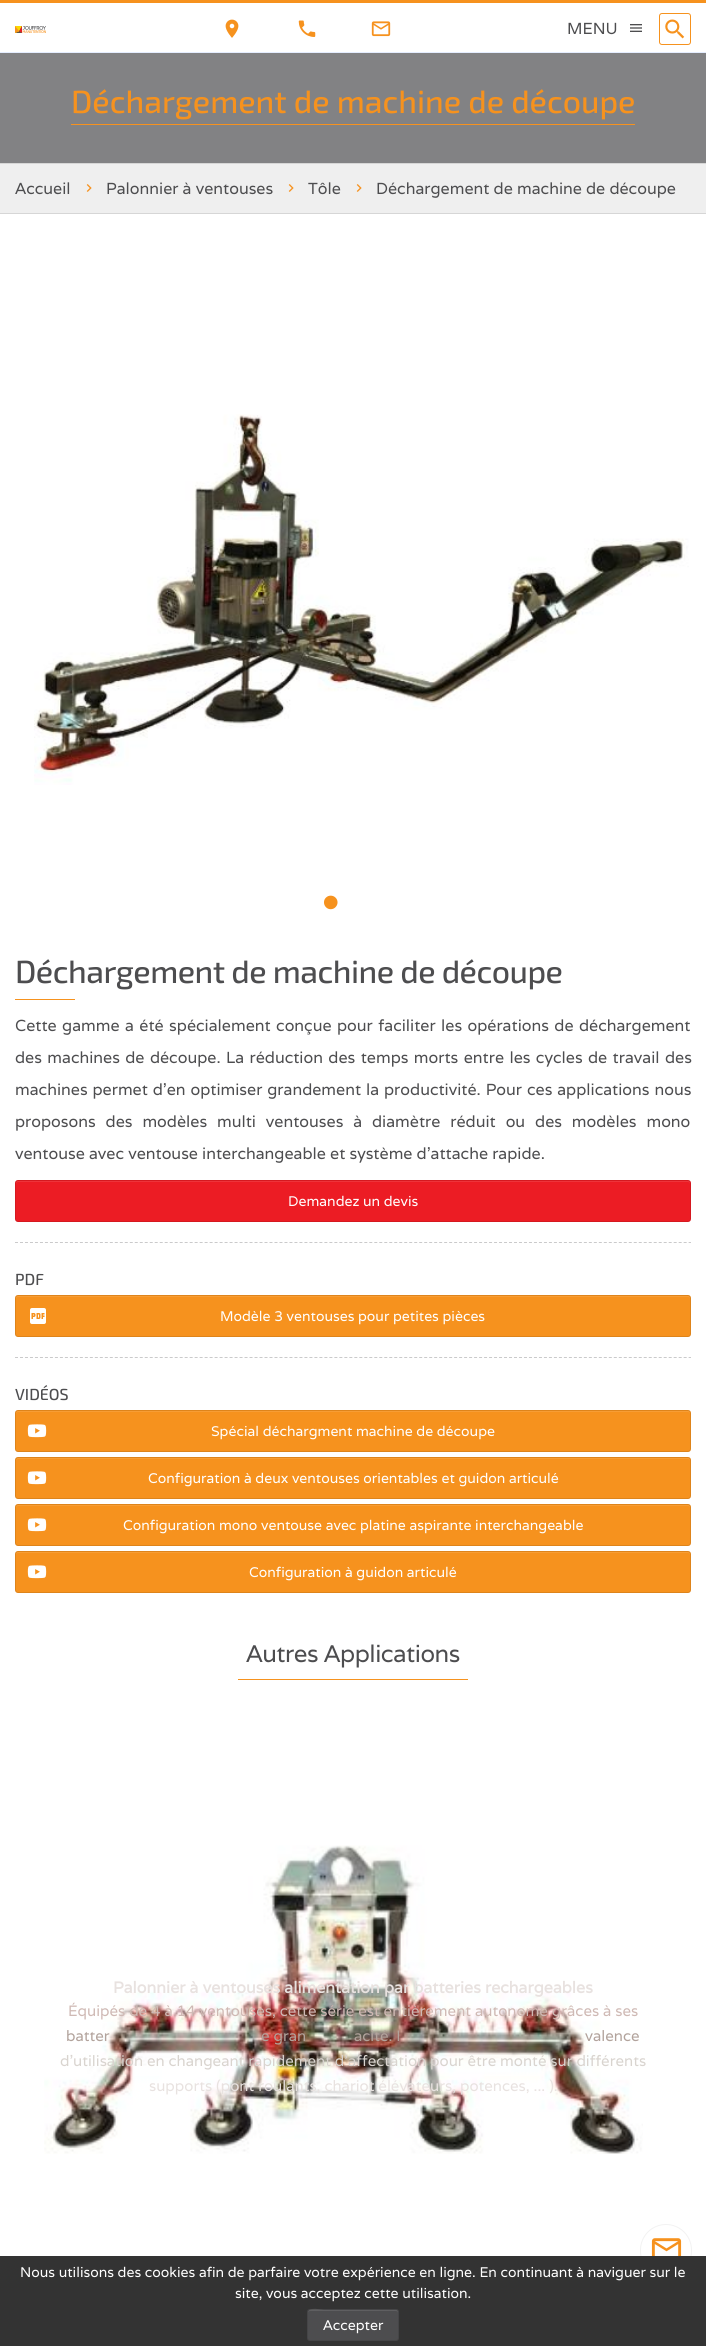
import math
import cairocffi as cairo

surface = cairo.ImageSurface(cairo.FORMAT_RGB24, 706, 2346)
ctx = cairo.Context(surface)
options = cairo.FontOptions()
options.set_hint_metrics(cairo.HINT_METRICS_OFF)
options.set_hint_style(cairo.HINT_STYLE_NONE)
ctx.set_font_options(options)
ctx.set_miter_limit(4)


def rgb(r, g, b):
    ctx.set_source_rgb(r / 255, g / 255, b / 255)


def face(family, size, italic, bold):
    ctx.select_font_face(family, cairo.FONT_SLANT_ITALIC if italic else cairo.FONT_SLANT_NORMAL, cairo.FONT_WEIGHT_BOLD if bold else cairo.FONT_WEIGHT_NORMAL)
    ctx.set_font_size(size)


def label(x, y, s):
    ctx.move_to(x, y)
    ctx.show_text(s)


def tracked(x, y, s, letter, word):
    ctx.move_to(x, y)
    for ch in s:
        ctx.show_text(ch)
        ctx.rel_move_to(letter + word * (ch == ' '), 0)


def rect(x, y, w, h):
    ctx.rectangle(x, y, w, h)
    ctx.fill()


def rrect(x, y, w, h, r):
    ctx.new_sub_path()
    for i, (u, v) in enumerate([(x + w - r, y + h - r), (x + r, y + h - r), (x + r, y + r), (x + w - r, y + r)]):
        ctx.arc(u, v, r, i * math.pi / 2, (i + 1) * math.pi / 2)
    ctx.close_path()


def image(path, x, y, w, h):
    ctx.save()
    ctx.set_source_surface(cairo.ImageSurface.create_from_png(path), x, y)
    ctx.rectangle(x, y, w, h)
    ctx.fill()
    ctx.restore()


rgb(255, 255, 255)
ctx.paint()
rgb(246, 146, 30)
rect(0, 0, 706, 3)
rgb(228, 237, 255)
rect(0, 52, 706, 1)
image('image0.png', 15, 26, 31, 7)
image('image1.png', 225, 19, 14, 19)
image('image2.png', 298, 20, 18, 17)
image('image3.png', 371, 21, 20, 16)
face('Varela', 16, 0, 0)
rgb(77, 77, 79)
label(567, 34, 'MENU')
image('image4.png', 630, 24, 12, 8)
rrect(659.5, 13.5, 31, 31, 2.5)
rgb(246, 146, 30)
ctx.set_line_width(1)
ctx.stroke()
image('image5.png', 665, 19, 20, 20)
rgb(130, 130, 132)
rect(0, 53, 706, 110)
face('Exo 2 Medium', 32, 0, 0)
rgb(246, 146, 30)
label(71, 113, 'Déchargement de machine de découpe')
rect(71, 124, 564, 1)
rgb(239, 239, 239)
rect(0, 164, 706, 49)
rgb(214, 214, 214)
rect(0, 163, 706, 1)
rect(0, 213, 706, 1)
face('Varela', 16, 0, 0)
rgb(77, 77, 79)
label(15, 194, 'Accueil')
image('image6.png', 86, 184, 6, 8)
label(106, 194, 'Palonnier à ventouses')
image('image6.png', 288, 184, 6, 8)
label(308, 194, 'Tôle')
image('image6.png', 356, 184, 6, 8)
label(376, 194, 'Déchargement de machine de découpe')
image('image7.png', 34, 414, 655, 371)
face('Liberation Sans', 50, 0, 0)
rgb(246, 146, 30)
label(322, 919, '•')
face('Exo 2 Medium', 32, 0, 0)
rgb(77, 77, 79)
tracked(15, 983, 'Déchargement de machine de découpe', -0.5, 0)
rgb(246, 146, 30)
rect(15, 999, 60, 1)
face('Varela', 16, 0, 0)
rgb(77, 77, 79)
tracked(15, 1031, 'Cette gamme a été spécialement conçue pour faciliter les opérations de déchargement', 0, 1.25)
tracked(15, 1063, 'des machines de découpe. La réduction des temps morts entre les cycles de travail des', 0, 1.25)
tracked(15, 1095, 'machines permet d\'en optimiser grandement la productivité. Pour ces applications nous', 0, 0.75)
tracked(15, 1127, 'proposons des modèles multi ventouses à diamètre réduit ou des modèles mono', 0, 5.75)
label(15, 1159, 'ventouse avec ventouse interchangeable et système d\'attache rapide.')
rgb(236, 28, 36)
rrect(15, 1180, 676, 42, 3)
ctx.fill()
rgb(238, 51, 58)
ctx.new_path()
ctx.move_to(18, 1182)
ctx.line_to(688, 1182)
ctx.curve_to(689, 1182, 690, 1183, 690, 1184)
ctx.curve_to(690, 1183, 690, 1181, 688, 1181)
ctx.line_to(18, 1181)
ctx.curve_to(16, 1181, 16, 1183, 16, 1184)
ctx.curve_to(16, 1183, 17, 1182, 18, 1182)
ctx.close_path()
ctx.fill()
rrect(15.5, 1180.5, 675, 41, 2.5)
ctx.set_source_rgba(0, 0, 0, 0.1)
ctx.stroke()
face('Varela', 14, 0, 0)
rgb(255, 255, 255)
label(288, 1206, 'Demandez un devis')
ctx.new_path()
ctx.move_to(15, 1242.5)
ctx.line_to(691, 1242.5)
rgb(202, 202, 203)
ctx.set_dash([3, 1.99])
ctx.stroke()
face('Exo 2 Medium', 16, 0, 0)
rgb(77, 77, 79)
label(15, 1285, 'PDF')
rgb(246, 146, 30)
rrect(15, 1295, 676, 42, 3)
ctx.fill()
rgb(247, 157, 53)
ctx.new_path()
ctx.move_to(18, 1297)
ctx.line_to(688, 1297)
ctx.curve_to(689, 1297, 690, 1298, 690, 1299)
ctx.curve_to(690, 1298, 690, 1296, 688, 1296)
ctx.line_to(18, 1296)
ctx.curve_to(16, 1296, 16, 1298, 16, 1299)
ctx.curve_to(16, 1298, 17, 1297, 18, 1297)
ctx.close_path()
ctx.fill()
rrect(15.5, 1295.5, 675, 41, 2.5)
ctx.set_source_rgba(0, 0, 0, 0.1)
ctx.set_dash([])
ctx.stroke()
image('image8.png', 30, 1308, 16, 16)
face('Varela', 14, 0, 0)
rgb(255, 255, 255)
label(220, 1321, 'Modèle 3 ventouses pour petites pièces')
ctx.new_path()
ctx.move_to(15, 1357.5)
ctx.line_to(691, 1357.5)
rgb(202, 202, 203)
ctx.set_dash([3, 1.99])
ctx.stroke()
face('Exo 2 Medium', 16, 0, 0)
rgb(77, 77, 79)
label(15, 1400, 'VIDÉOS')
rgb(246, 146, 30)
rrect(15, 1410, 676, 42, 3)
ctx.fill()
rgb(247, 157, 53)
ctx.new_path()
ctx.move_to(18, 1412)
ctx.line_to(688, 1412)
ctx.curve_to(689, 1412, 690, 1413, 690, 1414)
ctx.curve_to(690, 1413, 690, 1411, 688, 1411)
ctx.line_to(18, 1411)
ctx.curve_to(16, 1411, 16, 1413, 16, 1414)
ctx.curve_to(16, 1413, 17, 1412, 18, 1412)
ctx.close_path()
ctx.fill()
rrect(15.5, 1410.5, 675, 41, 2.5)
ctx.set_source_rgba(0, 0, 0, 0.1)
ctx.set_dash([])
ctx.stroke()
image('image9.png', 27, 1424, 20, 14)
face('Varela', 14, 0, 0)
rgb(255, 255, 255)
label(211, 1436, 'Spécial déchargment machine de découpe')
rgb(246, 146, 30)
rrect(15, 1457, 676, 42, 3)
ctx.fill()
rgb(247, 157, 53)
ctx.new_path()
ctx.move_to(18, 1459)
ctx.line_to(688, 1459)
ctx.curve_to(689, 1459, 690, 1460, 690, 1461)
ctx.curve_to(690, 1460, 690, 1458, 688, 1458)
ctx.line_to(18, 1458)
ctx.curve_to(16, 1458, 16, 1460, 16, 1461)
ctx.curve_to(16, 1460, 17, 1459, 18, 1459)
ctx.close_path()
ctx.fill()
rrect(15.5, 1457.5, 675, 41, 2.5)
ctx.set_source_rgba(0, 0, 0, 0.1)
ctx.stroke()
image('image9.png', 27, 1471, 20, 14)
rgb(255, 255, 255)
label(148, 1483, 'Configuration à deux ventouses orientables et guidon articulé')
rgb(246, 146, 30)
rrect(15, 1504, 676, 42, 3)
ctx.fill()
rgb(247, 157, 53)
ctx.new_path()
ctx.move_to(18, 1506)
ctx.line_to(688, 1506)
ctx.curve_to(689, 1506, 690, 1507, 690, 1508)
ctx.curve_to(690, 1507, 690, 1505, 688, 1505)
ctx.line_to(18, 1505)
ctx.curve_to(16, 1505, 16, 1507, 16, 1508)
ctx.curve_to(16, 1507, 17, 1506, 18, 1506)
ctx.close_path()
ctx.fill()
rrect(15.5, 1504.5, 675, 41, 2.5)
ctx.set_source_rgba(0, 0, 0, 0.1)
ctx.stroke()
image('image9.png', 27, 1518, 20, 14)
rgb(255, 255, 255)
label(123, 1530, 'Configuration mono ventouse avec platine aspirante interchangeable')
rgb(246, 146, 30)
rrect(15, 1551, 676, 42, 3)
ctx.fill()
rgb(247, 157, 53)
ctx.new_path()
ctx.move_to(18, 1553)
ctx.line_to(688, 1553)
ctx.curve_to(689, 1553, 690, 1554, 690, 1555)
ctx.curve_to(690, 1554, 690, 1552, 688, 1552)
ctx.line_to(18, 1552)
ctx.curve_to(16, 1552, 16, 1554, 16, 1555)
ctx.curve_to(16, 1554, 17, 1553, 18, 1553)
ctx.close_path()
ctx.fill()
rrect(15.5, 1551.5, 675, 41, 2.5)
ctx.set_source_rgba(0, 0, 0, 0.1)
ctx.stroke()
image('image9.png', 27, 1565, 20, 14)
rgb(255, 255, 255)
label(249, 1577, 'Configuration à guidon articulé')
face('Varela', 24, 0, 0)
rgb(77, 77, 79)
tracked(246, 1662, 'Autres Applications', -0.5, 0)
rgb(246, 146, 30)
rect(238, 1679, 230, 1)
image('image10.png', 44, 1845, 599, 309)
face('Varela', 16, 0, 1)
rgb(232, 226, 224)
label(113, 1993, 'Palonnier à ventouses alimentation par batteries rechargeables')
face('Varela', 15, 0, 0)
rgb(207, 185, 180)
label(68, 2016, 'Équipés de 4 à 14 ventouses, cette série est entièrement autonome grâces à ses')
rgb(178, 163, 156)
label(66, 2041, 'batter')
label(261, 2041, 'e gran')
label(354, 2041, 'acité. I')
label(585, 2041, 'valence')
rgb(217, 212, 207)
label(60, 2066, 'd\'utilisation en changeant rapidement d\'affectation pour être monté sur différents')
rgb(232, 226, 224)
label(149, 2091, 'supports (pont roulants, chariot élévateurs, potences, ... ).')
rrect(640.5, 2224.5, 51, 52, 25.5)
rgb(242, 242, 242)
ctx.stroke()
image('image11.png', 651, 2238, 31, 18)
rgb(51, 51, 51)
rect(0, 2256, 706, 90)
face('Varela', 14, 0, 0)
rgb(255, 255, 255)
label(20, 2277, 'Nous utilisons des cookies afin de parfaire votre expérience en ligne. En continuant à naviguer sur le')
label(235, 2298, 'site, vous acceptez cette utilisation.')
rgb(77, 77, 79)
rrect(307, 2309, 92, 32, 3)
ctx.fill()
rgb(95, 95, 97)
ctx.new_path()
ctx.move_to(310, 2311)
ctx.line_to(396, 2311)
ctx.curve_to(397, 2311, 398, 2312, 398, 2313)
ctx.curve_to(398, 2312, 398, 2310, 396, 2310)
ctx.line_to(324, 2310)
ctx.curve_to(322, 2310, 308, 2306, 308, 2313)
ctx.curve_to(308, 2312, 309, 2311, 310, 2311)
ctx.close_path()
ctx.fill()
rrect(307.5, 2309.5, 91, 31, 2.5)
ctx.set_source_rgba(0, 0, 0, 0.1)
ctx.stroke()
rgb(255, 255, 255)
label(323, 2330, 'Accepter')
surface.write_to_png('render.png')
